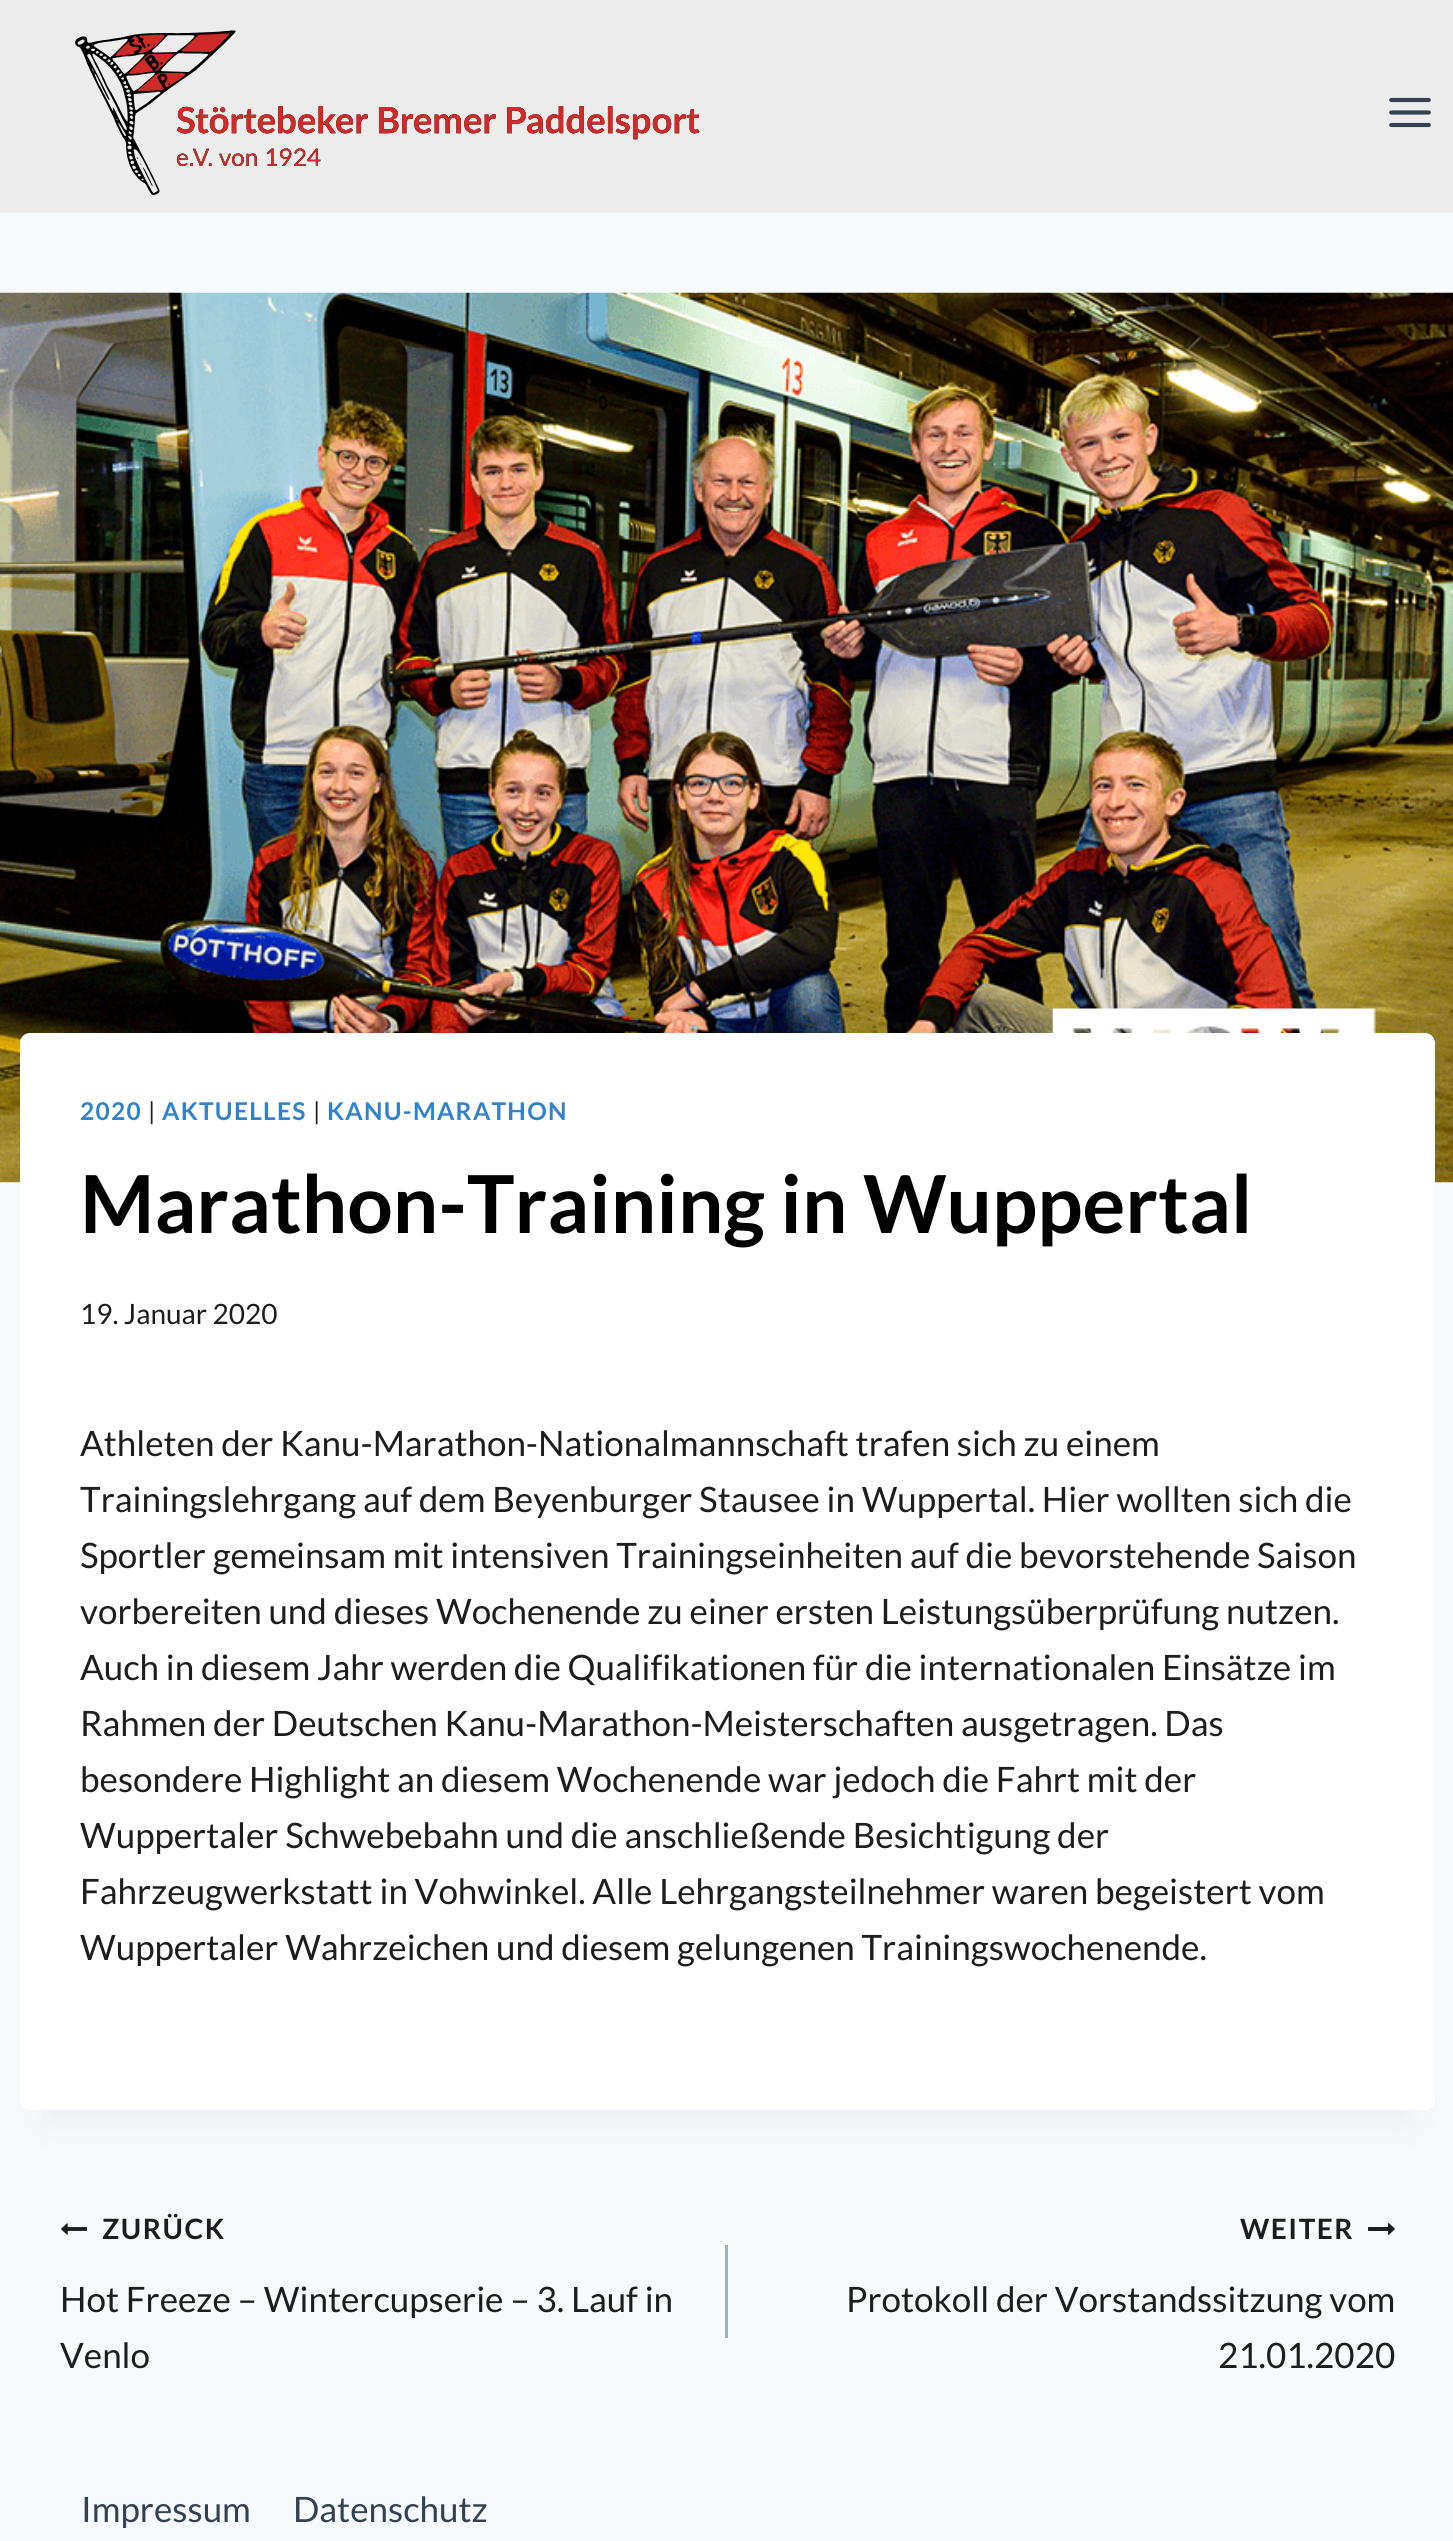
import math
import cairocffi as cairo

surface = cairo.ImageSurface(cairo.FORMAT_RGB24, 1453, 2541)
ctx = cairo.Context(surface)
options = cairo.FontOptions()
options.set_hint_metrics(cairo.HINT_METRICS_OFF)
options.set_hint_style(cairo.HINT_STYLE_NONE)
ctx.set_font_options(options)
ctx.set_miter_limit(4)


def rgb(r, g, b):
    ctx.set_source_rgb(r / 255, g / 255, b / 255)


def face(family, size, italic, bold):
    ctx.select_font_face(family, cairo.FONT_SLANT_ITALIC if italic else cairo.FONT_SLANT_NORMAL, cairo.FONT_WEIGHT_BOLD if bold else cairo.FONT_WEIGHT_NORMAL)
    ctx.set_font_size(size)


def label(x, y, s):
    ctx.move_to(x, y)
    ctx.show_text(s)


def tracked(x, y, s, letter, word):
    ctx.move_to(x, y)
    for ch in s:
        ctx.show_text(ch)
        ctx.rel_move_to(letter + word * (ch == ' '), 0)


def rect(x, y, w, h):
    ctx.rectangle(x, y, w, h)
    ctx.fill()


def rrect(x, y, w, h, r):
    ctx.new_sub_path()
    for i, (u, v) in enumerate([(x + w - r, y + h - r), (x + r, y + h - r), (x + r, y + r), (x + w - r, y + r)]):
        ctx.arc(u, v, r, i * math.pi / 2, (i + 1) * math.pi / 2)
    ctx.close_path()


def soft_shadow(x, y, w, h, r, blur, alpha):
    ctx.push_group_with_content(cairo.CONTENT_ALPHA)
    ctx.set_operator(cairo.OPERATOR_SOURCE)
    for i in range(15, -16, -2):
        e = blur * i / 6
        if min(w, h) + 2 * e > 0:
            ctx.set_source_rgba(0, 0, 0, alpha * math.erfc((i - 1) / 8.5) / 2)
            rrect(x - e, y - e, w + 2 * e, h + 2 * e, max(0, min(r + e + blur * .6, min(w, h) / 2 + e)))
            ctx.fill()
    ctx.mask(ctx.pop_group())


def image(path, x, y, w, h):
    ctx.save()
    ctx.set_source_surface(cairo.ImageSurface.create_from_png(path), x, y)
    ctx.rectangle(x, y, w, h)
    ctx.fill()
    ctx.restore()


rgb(247, 250, 252)
ctx.paint()
rgb(236, 236, 236)
rect(0, 0, 1453, 213)
image('image0.png', 75, 30, 625, 165)
image('image1.png', 1389, 97, 42, 31)
image('image2.png', 0, 292, 1453, 891)
rgb(0, 0, 0)
soft_shadow(45, 1095, 1365, 1028, 0, 19, 0.05)
rgb(255, 255, 255)
rrect(20, 1033, 1415, 1077, 10)
ctx.fill()
face('Lato', 24.5, 0, 1)
rgb(49, 130, 206)
tracked(80, 1120, '2020', 1.25, 0)
face('Lato', 24.5, 0, 0)
rgb(29, 29, 29)
tracked(148, 1120, '|', 1.25, 0)
face('Lato', 24.5, 0, 1)
rgb(49, 130, 206)
tracked(162, 1120, 'AKTUELLES', 1.25, 0)
face('Lato', 24.5, 0, 0)
rgb(29, 29, 29)
tracked(313, 1120, '|', 1.25, 0)
face('Lato', 24.5, 0, 1)
rgb(49, 130, 206)
tracked(327, 1120, 'KANU-MARATHON', 1.25, 0)
face('Lato', 80, 0, 1)
rgb(1, 1, 1)
label(80, 1233, 'Marathon-Training in Wuppertal')
face('Lato', 28, 0, 0)
rgb(29, 29, 29)
label(80, 1324, '19. Januar 2020')
face('Lato', 35, 0, 0)
label(80, 1456, 'Athleten der Kanu-Marathon-Nationalmannschaft trafen sich zu einem')
label(80, 1512, 'Trainingslehrgang auf dem Beyenburger Stausee in Wuppertal. Hier wollten sich die')
label(80, 1568, 'Sportler gemeinsam mit intensiven Trainingseinheiten auf die bevorstehende Saison')
label(80, 1624, 'vorbereiten und dieses Wochenende zu einer ersten Leistungsüberprüfung nutzen.')
label(80, 1680, 'Auch in diesem Jahr werden die Qualifikationen für die internationalen Einsätze im')
label(80, 1736, 'Rahmen der Deutschen Kanu-Marathon-Meisterschaften ausgetragen. Das')
label(80, 1792, 'besondere Highlight an diesem Wochenende war jedoch die Fahrt mit der')
label(80, 1848, 'Wuppertaler Schwebebahn und die anschließende Besichtigung der')
label(80, 1904, 'Fahrzeugwerkstatt in Vohwinkel. Alle Lehrgangsteilnehmer waren begeistert vom')
label(80, 1960, 'Wuppertaler Wahrzeichen und diesem gelungenen Trainingswochenende.')
image('image3.png', 61, 2223, 26, 12)
face('Lato', 28, 0, 1)
tracked(102, 2239, 'ZURÜCK', 1.5, 0)
face('Lato', 35, 0, 0)
label(60, 2312, 'Hot Freeze – Wintercupserie – 3. Lauf in')
label(60, 2368, 'Venlo')
rgb(160, 174, 192)
rect(725, 2245, 3, 93)
face('Lato', 28, 0, 1)
rgb(29, 29, 29)
tracked(1240, 2239, 'WEITER', 1.5, 0)
image('image4.png', 1368, 2223, 27, 12)
face('Lato', 35, 0, 0)
label(846, 2312, 'Protokoll der Vorstandssitzung vom')
label(1218, 2368, '21.01.2020')
rgb(52, 65, 82)
label(81, 2522, 'Impressum')
label(293, 2522, 'Datenschutz')
surface.write_to_png('render.png')
